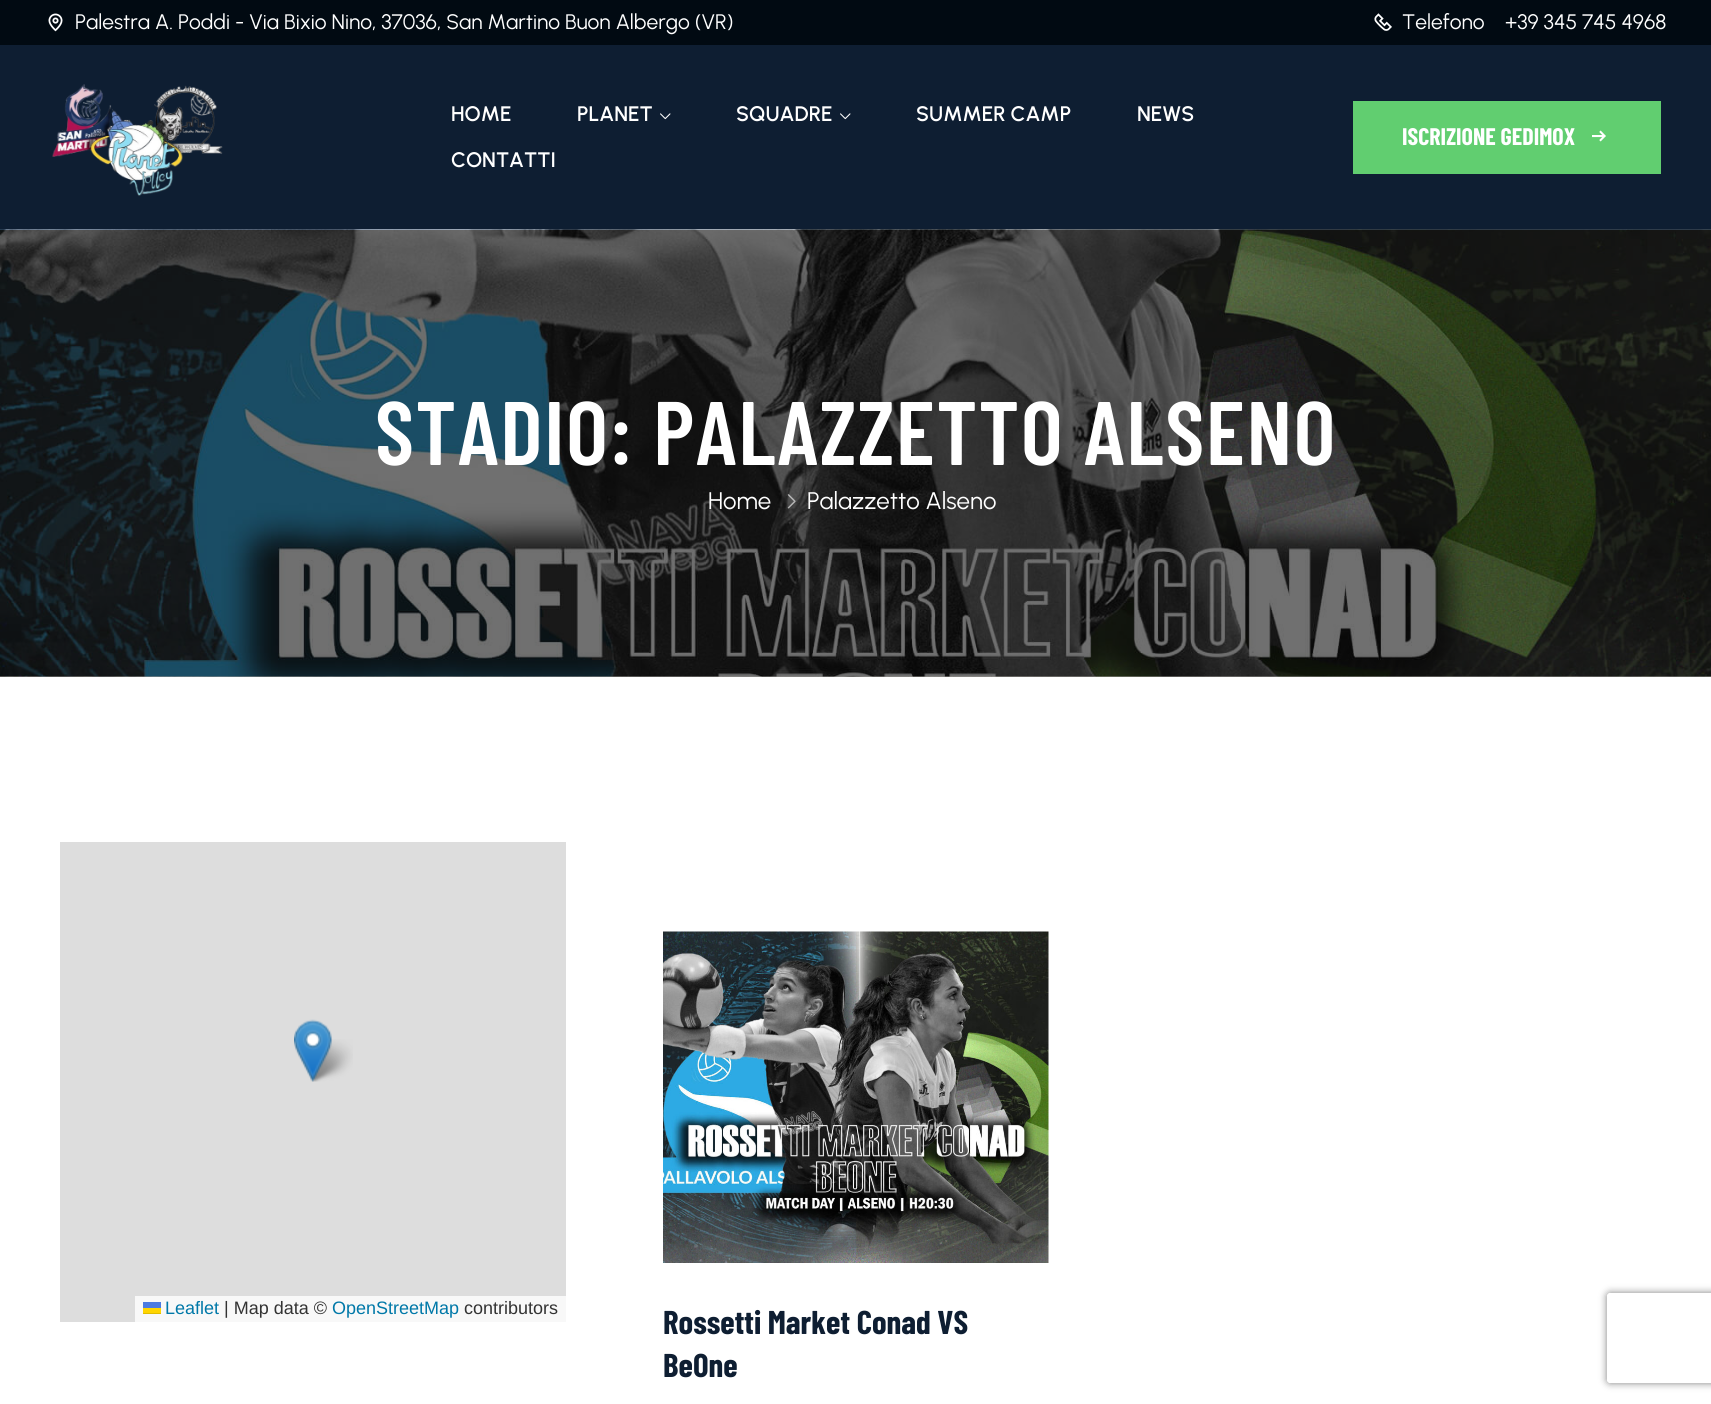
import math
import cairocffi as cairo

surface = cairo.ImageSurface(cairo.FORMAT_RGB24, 1711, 1404)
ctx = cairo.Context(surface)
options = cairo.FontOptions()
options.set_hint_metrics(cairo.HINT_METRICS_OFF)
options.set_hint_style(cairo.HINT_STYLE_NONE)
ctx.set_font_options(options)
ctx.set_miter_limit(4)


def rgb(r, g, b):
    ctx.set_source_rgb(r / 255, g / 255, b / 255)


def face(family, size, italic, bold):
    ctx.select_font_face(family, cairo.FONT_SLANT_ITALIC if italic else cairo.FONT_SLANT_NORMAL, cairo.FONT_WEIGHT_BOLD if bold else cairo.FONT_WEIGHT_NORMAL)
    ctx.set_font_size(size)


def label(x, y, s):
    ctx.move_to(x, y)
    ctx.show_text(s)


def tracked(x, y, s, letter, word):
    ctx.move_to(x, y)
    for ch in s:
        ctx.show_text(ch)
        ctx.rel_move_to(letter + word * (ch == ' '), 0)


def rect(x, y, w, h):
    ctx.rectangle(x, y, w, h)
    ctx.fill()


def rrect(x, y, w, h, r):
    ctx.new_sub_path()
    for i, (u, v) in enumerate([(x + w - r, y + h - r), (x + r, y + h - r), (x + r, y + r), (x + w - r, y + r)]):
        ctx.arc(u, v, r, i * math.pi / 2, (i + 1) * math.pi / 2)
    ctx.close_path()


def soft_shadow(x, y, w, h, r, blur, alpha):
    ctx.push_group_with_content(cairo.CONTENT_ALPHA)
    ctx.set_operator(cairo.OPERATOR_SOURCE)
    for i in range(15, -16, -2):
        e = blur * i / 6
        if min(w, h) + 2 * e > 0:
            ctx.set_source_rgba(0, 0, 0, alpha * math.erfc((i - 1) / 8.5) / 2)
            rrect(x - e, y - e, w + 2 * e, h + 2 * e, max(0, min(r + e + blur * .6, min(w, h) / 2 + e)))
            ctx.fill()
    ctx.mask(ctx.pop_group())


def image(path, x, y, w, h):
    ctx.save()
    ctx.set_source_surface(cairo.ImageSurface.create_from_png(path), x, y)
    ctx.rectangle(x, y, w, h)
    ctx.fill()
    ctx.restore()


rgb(255, 255, 255)
ctx.paint()
rgb(1, 10, 18)
rect(0, 0, 1711, 45)
image('image0.png', 48, 13, 15, 19)
face('Urbanist', 21, 0, 0)
rgb(255, 255, 255)
label(75, 29, 'Palestra A. Poddi - Via Bixio Nino, 37036, San Martino Buon Albergo (VR)')
image('image1.png', 1374, 13, 18, 18)
label(1402, 29, 'Telefono')
label(1505, 29, '+39 345 745 4968')
rgb(14, 30, 50)
rect(0, 45, 1711, 185)
image('image2.png', 52, 84, 171, 112)
face('Urbanist SemiBold', 21, 0, 0)
rgb(255, 255, 255)
label(451, 121, 'HOME')
label(577, 121, 'PLANET')
image('image3.png', 660, 113, 11, 7)
label(736, 121, 'SQUADRE')
image('image3.png', 840, 113, 11, 7)
label(916, 121, 'SUMMER CAMP')
label(1137, 121, 'NEWS')
label(451, 167, 'CONTATTI')
rgb(97, 206, 112)
rect(1353, 101, 308, 73)
face('Barlow Condensed', 24, 0, 1)
rgb(255, 255, 255)
label(1402, 145, 'ISCRIZIONE GEDIMOX')
image('image4.png', 1592, 130, 14, 12)
image('image5.png', 0, 229, 1711, 448)
image('image6.png', 0, 229, 1711, 448)
face('Barlow Condensed SemiBold', 90, 0, 0)
tracked(375, 465, 'STADIO: PALAZZETTO ALSENO', 1.5, 0)
face('Urbanist', 24, 0, 0)
label(708, 509, 'Home')
image('image7.png', 787, 494, 9, 15)
label(807, 509, 'Palazzetto Alseno')
rgb(221, 221, 221)
rect(60, 842, 506, 480)
image('image9.png', 307, 1039, 46, 43)
image('image8.png', 294, 1019, 38, 63)
rgb(248, 248, 248)
rect(135, 1296, 431, 26)
face('Liberation Sans', 18, 0, 0)
rgb(0, 120, 168)
label(165, 1314, 'Leaflet')
rgb(76, 123, 225)
rect(143, 1302, 18, 6)
rgb(255, 213, 0)
rect(143, 1308, 18, 5)
rgb(224, 188, 0)
rect(143, 1313, 18, 1)
rgb(51, 51, 51)
label(224, 1314, '| Map data ©')
rgb(0, 120, 168)
label(332, 1314, 'OpenStreetMap')
rgb(51, 51, 51)
label(464, 1314, 'contributors')
image('image10.png', 663, 931, 386, 332)
face('Barlow Condensed', 33, 0, 1)
rgb(14, 30, 50)
label(663, 1334, 'Rossetti Market Conad VS')
label(663, 1377, 'BeOne')
ctx.save()
ctx.set_fill_rule(cairo.FILL_RULE_EVEN_ODD)
ctx.new_path()
ctx.move_to(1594, 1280)
ctx.line_to(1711, 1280)
ctx.line_to(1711, 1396)
ctx.line_to(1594, 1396)
ctx.close_path()
ctx.move_to(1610, 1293)
ctx.line_to(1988, 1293)
ctx.curve_to(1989.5, 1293, 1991, 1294.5, 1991, 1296)
ctx.line_to(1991, 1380)
ctx.curve_to(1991, 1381.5, 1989.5, 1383, 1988, 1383)
ctx.line_to(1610, 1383)
ctx.curve_to(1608.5, 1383, 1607, 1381.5, 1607, 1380)
ctx.line_to(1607, 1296)
ctx.curve_to(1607, 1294.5, 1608.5, 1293, 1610, 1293)
ctx.close_path()
ctx.clip()
rgb(128, 128, 128)
soft_shadow(1607, 1293, 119, 90, 3, 4, 1)
ctx.restore()
surface.write_to_png('render.png')
